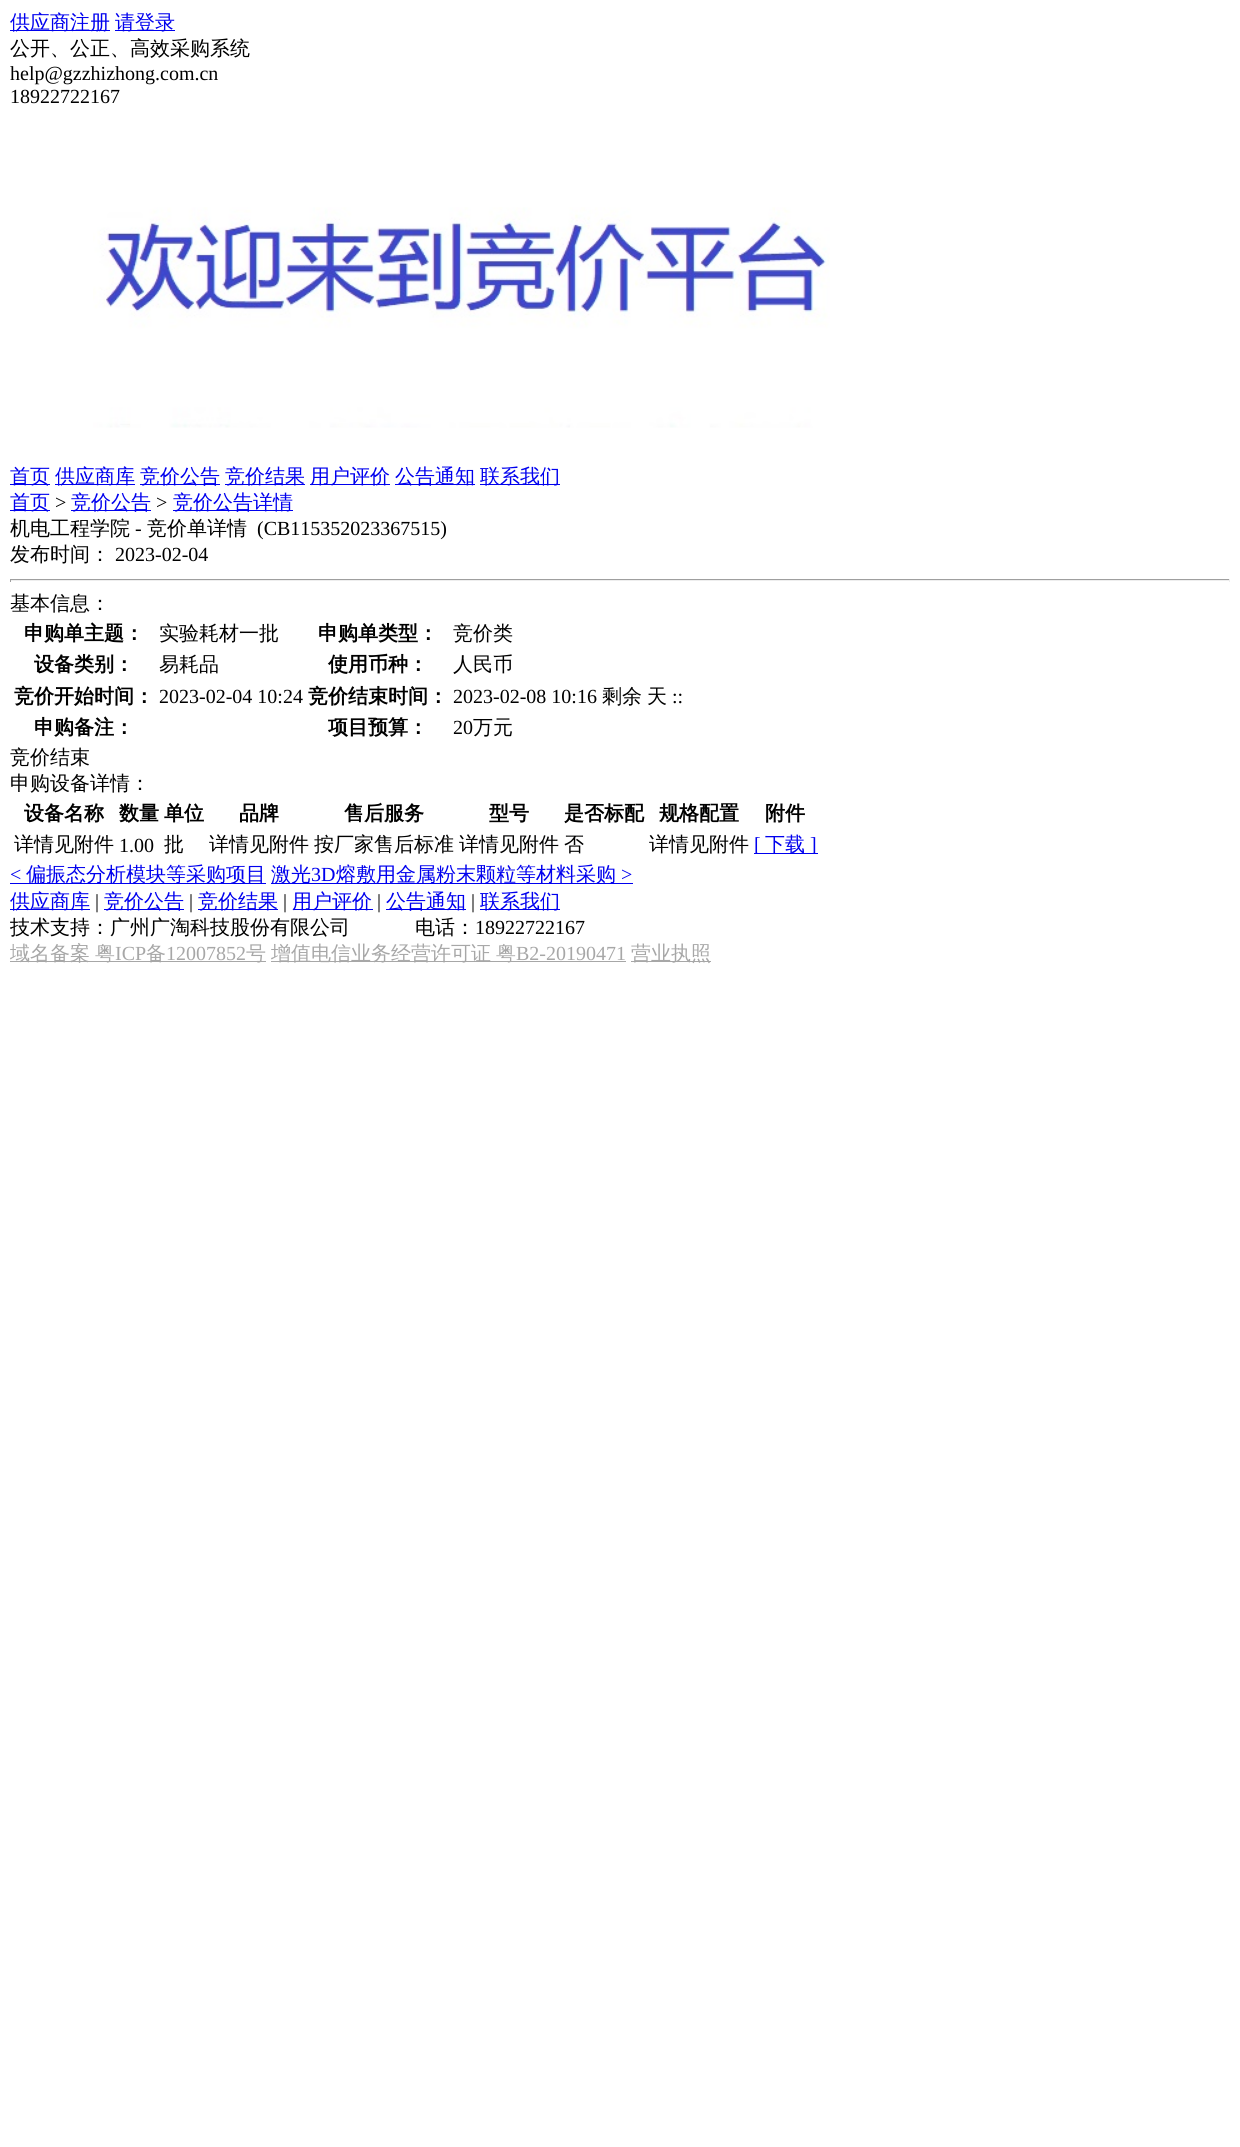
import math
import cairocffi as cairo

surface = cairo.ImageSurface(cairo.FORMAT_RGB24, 1240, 2147)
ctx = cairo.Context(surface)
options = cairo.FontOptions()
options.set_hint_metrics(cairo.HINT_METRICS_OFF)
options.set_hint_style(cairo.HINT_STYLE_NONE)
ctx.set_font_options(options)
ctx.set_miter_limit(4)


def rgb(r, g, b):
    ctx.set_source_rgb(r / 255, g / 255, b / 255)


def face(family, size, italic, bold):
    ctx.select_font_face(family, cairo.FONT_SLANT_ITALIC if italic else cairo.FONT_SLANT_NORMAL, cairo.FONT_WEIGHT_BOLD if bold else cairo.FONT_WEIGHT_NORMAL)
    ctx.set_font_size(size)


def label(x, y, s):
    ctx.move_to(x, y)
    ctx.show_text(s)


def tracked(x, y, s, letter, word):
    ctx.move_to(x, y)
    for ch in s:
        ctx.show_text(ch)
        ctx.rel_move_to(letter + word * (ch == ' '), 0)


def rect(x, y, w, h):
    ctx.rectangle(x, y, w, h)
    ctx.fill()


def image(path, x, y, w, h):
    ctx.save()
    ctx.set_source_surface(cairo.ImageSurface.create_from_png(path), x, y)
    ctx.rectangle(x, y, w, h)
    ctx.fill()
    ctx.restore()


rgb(255, 255, 255)
ctx.paint()
rgb(0, 0, 238)
rect(10, 30, 100, 1)
face('WenQuanYi Zen Hei Medium', 20, 0, 0)
label(10, 29, '供应商注册')
rect(115, 30, 60, 1)
label(115, 29, '请登录')
rgb(0, 0, 0)
label(10, 55, '公开、公正、高效采购系统')
face('Liberation Serif', 20, 0, 0)
label(10, 80, 'help@gzzhizhong.com.cn')
label(10, 103, '18922722167')
image('image0.png', 93, 207, 737, 221)
rgb(0, 0, 238)
rect(10, 484, 40, 1)
face('WenQuanYi Zen Hei Medium', 20, 0, 0)
label(10, 483, '首页')
rect(55, 484, 80, 1)
label(55, 483, '供应商库')
rect(140, 484, 80, 1)
label(140, 483, '竞价公告')
rect(225, 484, 80, 1)
label(225, 483, '竞价结果')
rect(310, 484, 80, 1)
label(310, 483, '用户评价')
rect(395, 484, 80, 1)
label(395, 483, '公告通知')
rect(480, 484, 80, 1)
label(480, 483, '联系我们')
rect(10, 510, 40, 1)
label(10, 509, '首页')
face('Liberation Serif', 20, 0, 0)
rgb(0, 0, 0)
label(55, 509, '>')
rgb(0, 0, 238)
rect(71, 510, 80, 1)
face('WenQuanYi Zen Hei Medium', 20, 0, 0)
label(71, 509, '竞价公告')
face('Liberation Serif', 20, 0, 0)
rgb(0, 0, 0)
label(156, 509, '>')
rgb(0, 0, 238)
rect(173, 510, 120, 1)
face('WenQuanYi Zen Hei Medium', 20, 0, 0)
label(173, 509, '竞价公告详情')
rgb(0, 0, 0)
label(10, 535, '机电工程学院')
face('Liberation Serif', 20, 0, 0)
label(135, 535, '-')
face('WenQuanYi Zen Hei Medium', 20, 0, 0)
label(147, 535, '竞价单详情')
face('Liberation Serif', 20, 0, 0)
label(257, 535, '(CB115352023367515)')
face('WenQuanYi Zen Hei Medium', 20, 0, 0)
label(10, 561, '发布时间：')
face('Liberation Serif', 20, 0, 0)
label(115, 561, '2023-02-04')
rgb(159, 159, 159)
rect(10, 579, 1220, 1)
rgb(238, 238, 238)
rect(1229, 579, 1, 3)
rect(10, 580, 1220, 1)
rgb(159, 159, 159)
rect(10, 579, 1, 3)
face('WenQuanYi Zen Hei Medium', 20, 0, 0)
rgb(0, 0, 0)
label(10, 610, '基本信息：')
face('WenQuanYi Zen Hei', 20, 0, 1)
label(24, 640, '申购单主题：')
face('WenQuanYi Zen Hei Medium', 20, 0, 0)
label(159, 640, '实验耗材一批')
face('WenQuanYi Zen Hei', 20, 0, 1)
label(318, 640, '申购单类型：')
face('WenQuanYi Zen Hei Medium', 20, 0, 0)
label(453, 640, '竞价类')
face('WenQuanYi Zen Hei', 20, 0, 1)
label(34, 671, '设备类别：')
face('WenQuanYi Zen Hei Medium', 20, 0, 0)
label(159, 671, '易耗品')
face('WenQuanYi Zen Hei', 20, 0, 1)
label(328, 671, '使用币种：')
face('WenQuanYi Zen Hei Medium', 20, 0, 0)
label(453, 671, '人民币')
face('WenQuanYi Zen Hei', 20, 0, 1)
label(14, 703, '竞价开始时间：')
face('Liberation Serif', 20, 0, 0)
label(159, 703, '2023-02-04 10:24')
face('WenQuanYi Zen Hei', 20, 0, 1)
label(308, 703, '竞价结束时间：')
face('Liberation Serif', 20, 0, 0)
label(453, 703, '2023-02-08 10:16')
face('WenQuanYi Zen Hei Medium', 20, 0, 0)
label(602, 703, '剩余')
label(647, 703, '天')
face('Liberation Serif', 20, 0, 0)
label(672, 703, '::')
face('WenQuanYi Zen Hei', 20, 0, 1)
label(34, 734, '申购备注：')
label(328, 734, '项目预算：')
face('Liberation Serif', 20, 0, 0)
label(453, 734, '20')
face('WenQuanYi Zen Hei Medium', 20, 0, 0)
label(473, 734, '万元')
label(10, 764, '竞价结束')
label(10, 790, '申购设备详情：')
face('WenQuanYi Zen Hei', 20, 0, 1)
label(24, 820, '设备名称')
label(119, 820, '数量')
label(164, 820, '单位')
label(239, 820, '品牌')
label(344, 820, '售后服务')
label(489, 820, '型号')
label(564, 820, '是否标配')
label(659, 820, '规格配置')
label(765, 820, '附件')
face('WenQuanYi Zen Hei Medium', 20, 0, 0)
label(14, 851, '详情见附件')
face('Liberation Serif', 20, 0, 0)
label(119, 852, '1.00')
face('WenQuanYi Zen Hei Medium', 20, 0, 0)
label(164, 851, '批')
label(209, 851, '详情见附件')
label(314, 851, '按厂家售后标准')
label(459, 851, '详情见附件')
label(564, 851, '否')
label(649, 851, '详情见附件')
rgb(0, 0, 238)
rect(754, 853, 64, 1)
face('Liberation Serif', 20, 0, 0)
label(754, 851, '[')
face('WenQuanYi Zen Hei Medium', 20, 0, 0)
label(765, 851, '下载')
face('Liberation Serif', 20, 0, 0)
label(810, 851, ']')
label(10, 881, '<')
rect(10, 883, 256, 1)
face('WenQuanYi Zen Hei Medium', 20, 0, 0)
label(26, 881, '偏振态分析模块等采购项目')
rect(271, 883, 362, 1)
label(271, 881, '激光')
face('Liberation Serif', 20, 0, 0)
label(311, 881, '3D')
face('WenQuanYi Zen Hei Medium', 20, 0, 0)
label(336, 881, '熔敷用金属粉末颗粒等材料采购')
face('Liberation Serif', 20, 0, 0)
label(621, 881, '>')
rect(10, 909, 80, 1)
face('WenQuanYi Zen Hei Medium', 20, 0, 0)
label(10, 908, '供应商库')
face('Liberation Serif', 20, 0, 0)
rgb(0, 0, 0)
label(95, 908, '|')
rgb(0, 0, 238)
rect(104, 909, 80, 1)
face('WenQuanYi Zen Hei Medium', 20, 0, 0)
label(104, 908, '竞价公告')
face('Liberation Serif', 20, 0, 0)
rgb(0, 0, 0)
label(189, 908, '|')
rgb(0, 0, 238)
rect(198, 909, 80, 1)
face('WenQuanYi Zen Hei Medium', 20, 0, 0)
label(198, 908, '竞价结果')
face('Liberation Serif', 20, 0, 0)
rgb(0, 0, 0)
label(283, 908, '|')
rgb(0, 0, 238)
rect(293, 909, 80, 1)
face('WenQuanYi Zen Hei Medium', 20, 0, 0)
label(292, 908, '用户评价')
face('Liberation Serif', 20, 0, 0)
rgb(0, 0, 0)
label(377, 908, '|')
rgb(0, 0, 238)
rect(386, 909, 80, 1)
face('WenQuanYi Zen Hei Medium', 20, 0, 0)
label(386, 908, '公告通知')
face('Liberation Serif', 20, 0, 0)
rgb(0, 0, 0)
label(471, 908, '|')
rgb(0, 0, 238)
rect(480, 909, 80, 1)
face('WenQuanYi Zen Hei Medium', 20, 0, 0)
label(480, 908, '联系我们')
rgb(0, 0, 0)
label(10, 934, '技术支持：广州广淘科技股份有限公司')
label(415, 934, '电话：')
face('Liberation Serif', 20, 0, 0)
label(475, 934, '18922722167')
rgb(167, 167, 167)
rect(10, 961, 256, 1)
face('WenQuanYi Zen Hei Medium', 20, 0, 0)
tracked(10, 960, '域名备案 粤', 0, -1)
face('Liberation Serif', 20, 0, 0)
label(115, 960, 'ICP')
face('WenQuanYi Zen Hei Medium', 20, 0, 0)
label(146, 960, '备')
face('Liberation Serif', 20, 0, 0)
label(166, 960, '12007852')
face('WenQuanYi Zen Hei Medium', 20, 0, 0)
label(246, 960, '号')
rect(271, 961, 355, 1)
tracked(271, 960, '增值电信业务经营许可证 粤', 0, -1)
face('Liberation Serif', 20, 0, 0)
label(516, 960, 'B2-20190471')
rect(631, 961, 80, 1)
face('WenQuanYi Zen Hei Medium', 20, 0, 0)
label(631, 960, '营业执照')
surface.write_to_png('render.png')
